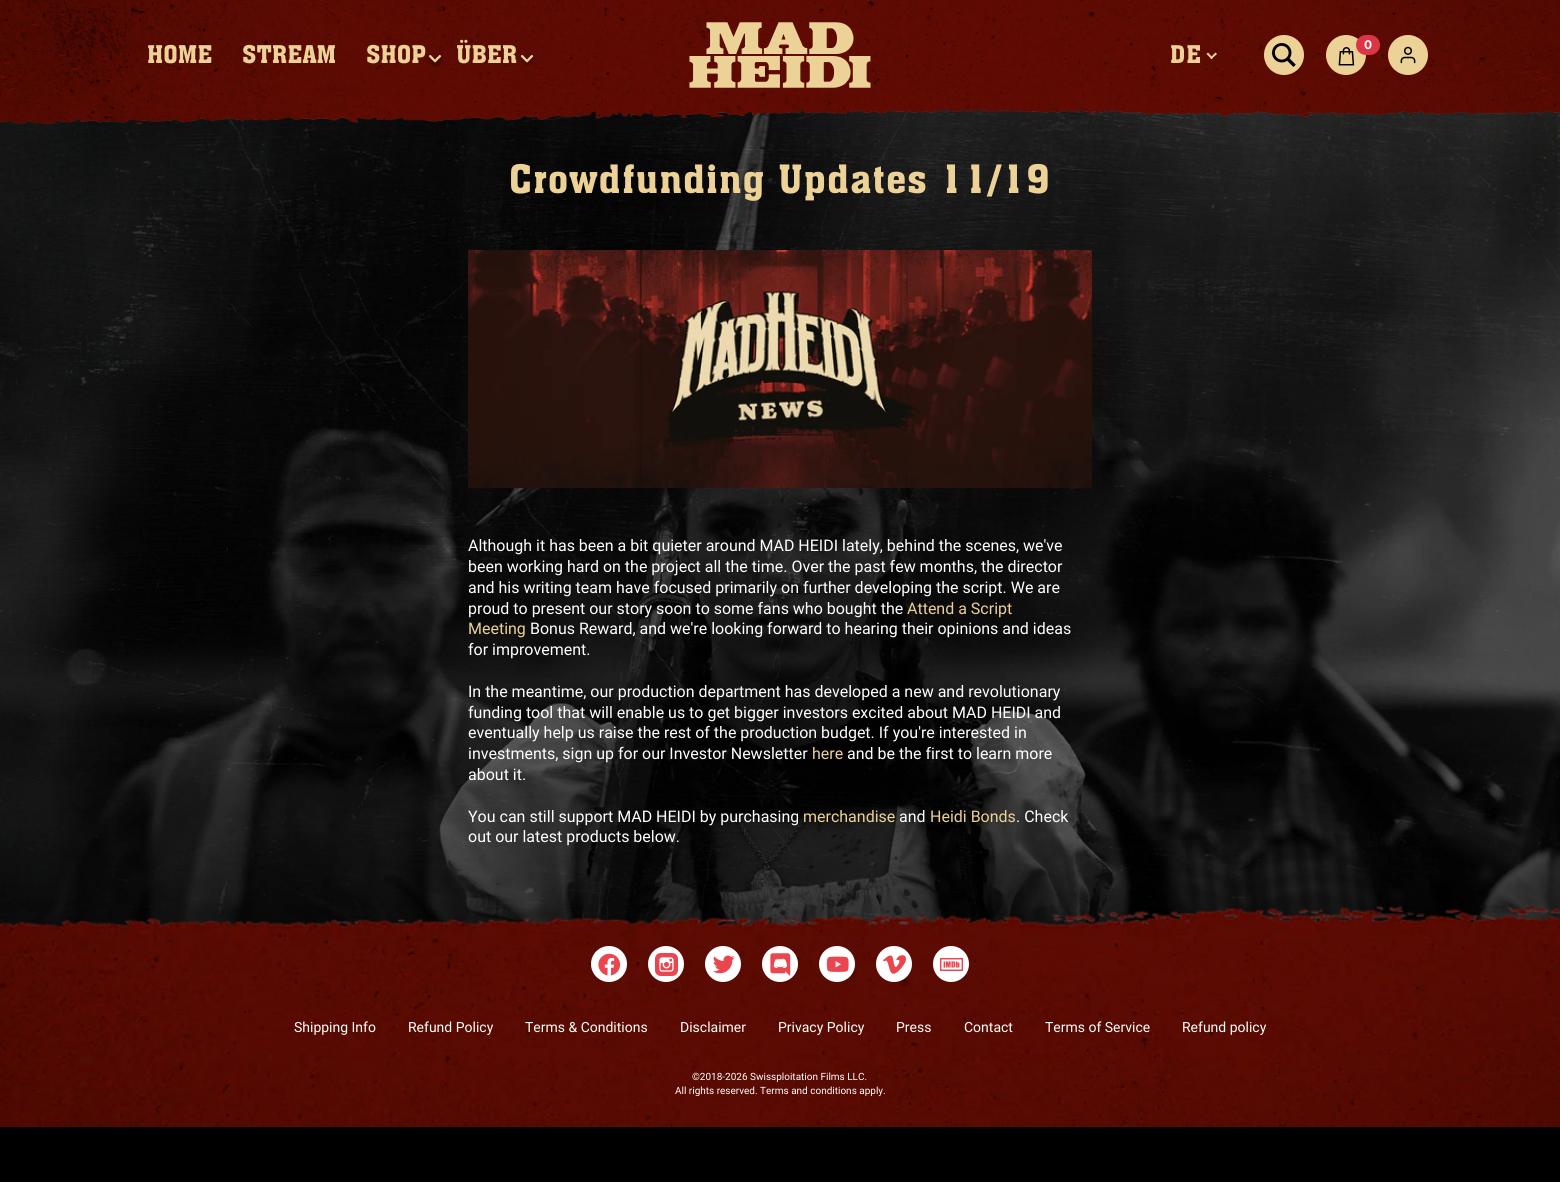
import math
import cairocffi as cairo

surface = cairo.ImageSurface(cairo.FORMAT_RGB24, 1560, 1182)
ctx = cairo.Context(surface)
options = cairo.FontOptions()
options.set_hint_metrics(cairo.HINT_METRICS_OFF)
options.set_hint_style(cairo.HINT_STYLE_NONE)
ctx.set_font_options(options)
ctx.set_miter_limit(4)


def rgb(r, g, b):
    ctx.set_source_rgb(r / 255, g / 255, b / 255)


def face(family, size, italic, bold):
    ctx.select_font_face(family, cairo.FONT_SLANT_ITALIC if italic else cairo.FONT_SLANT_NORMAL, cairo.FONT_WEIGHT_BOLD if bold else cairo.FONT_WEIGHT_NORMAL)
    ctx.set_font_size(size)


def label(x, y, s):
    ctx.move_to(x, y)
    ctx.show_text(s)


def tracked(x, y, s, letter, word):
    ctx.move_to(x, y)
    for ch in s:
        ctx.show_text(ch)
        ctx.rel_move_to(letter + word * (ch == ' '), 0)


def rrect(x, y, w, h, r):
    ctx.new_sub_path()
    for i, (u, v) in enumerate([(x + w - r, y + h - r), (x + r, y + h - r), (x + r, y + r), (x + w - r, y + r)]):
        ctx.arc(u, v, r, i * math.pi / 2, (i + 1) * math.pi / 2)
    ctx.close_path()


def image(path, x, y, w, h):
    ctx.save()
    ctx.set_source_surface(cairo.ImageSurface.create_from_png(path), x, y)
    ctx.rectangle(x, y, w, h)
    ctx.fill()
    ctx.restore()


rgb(0, 0, 0)
ctx.paint()
image('image0.png', 0, 100, 1560, 831)
image('image1.png', 0, 0, 1560, 125)
face('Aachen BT', 24, 0, 0)
rgb(237, 210, 151)
label(147, 63, 'HOME')
label(242, 63, 'STREAM')
label(366, 63, 'SHOP')
image('image2.png', 426, 55, 18, 12)
label(456, 63, 'ÜBER')
image('image3.png', 518, 54, 18, 13)
image('image4.png', 689, 22, 182, 66)
tracked(1170, 63, 'DE', 1, 0)
ctx.new_path()
ctx.move_to(1215.5, 52.5)
ctx.line_to(1217, 54)
ctx.line_to(1211.5, 59)
ctx.line_to(1210, 58)
ctx.close_path()
ctx.fill()
ctx.new_path()
ctx.move_to(1208, 52.5)
ctx.line_to(1213, 58)
ctx.line_to(1211.5, 59)
ctx.line_to(1206.5, 54)
ctx.close_path()
ctx.fill()
ctx.arc(1284, 55, 20, 0, 2 * math.pi)
ctx.fill()
image('image5.png', 1272, 43, 24, 24)
ctx.arc(1346, 55, 20, 0, 2 * math.pi)
ctx.fill()
rgb(220, 53, 69)
rrect(1356, 35, 24, 20, 10)
ctx.fill()
face('Inter', 12, 0, 1)
rgb(255, 255, 255)
label(1364, 49, '0')
image('image6.png', 1338, 47, 17, 19)
rgb(237, 210, 151)
ctx.arc(1408, 55, 20, 0, 2 * math.pi)
ctx.fill()
image('image7.png', 1400, 46, 16, 18)
face('Aachen BT', 38.4, 0, 0)
tracked(509, 193, 'Crowdfunding Updates 11/19', 0.95, 0)
image('image8.png', 468, 250, 624, 238)
face('Roboto', 16, 0, 0)
rgb(255, 255, 255)
label(468, 551, 'Although it has been a bit quieter around MAD HEIDI lately, behind the scenes, we\'ve')
label(468, 572, 'been working hard on the project all the time. Over the past few months, the director')
label(468, 593, 'and his writing team have focused primarily on further developing the script. We are')
label(468, 614, 'proud to present our story soon to some fans who bought the')
rgb(237, 210, 151)
label(907, 614, 'Attend a Script')
label(468, 634, 'Meeting')
rgb(255, 255, 255)
label(530, 634, 'Bonus Reward, and we\'re looking forward to hearing their opinions and ideas')
label(468, 655, 'for improvement.')
label(468, 697, 'In the meantime, our production department has developed a new and revolutionary')
label(468, 718, 'funding tool that will enable us to get bigger investors excited about MAD HEIDI and')
label(468, 738, 'eventually help us raise the rest of the production budget. If you\'re interested in')
label(468, 759, 'investments, sign up for our Investor Newsletter')
rgb(237, 210, 151)
label(812, 759, 'here')
rgb(255, 255, 255)
label(847, 759, 'and be the first to learn more')
label(468, 780, 'about it.')
label(468, 822, 'You can still support MAD HEIDI by purchasing')
rgb(237, 210, 151)
label(803, 822, 'merchandise')
rgb(255, 255, 255)
label(899, 822, 'and')
rgb(237, 210, 151)
label(930, 822, 'Heidi Bonds')
rgb(255, 255, 255)
label(1016, 822, '. Check')
label(468, 842, 'out our latest products below.')
image('image9.png', 0, 905, 1560, 222)
ctx.arc(609, 964, 18, 0, 2 * math.pi)
ctx.fill()
image('image10.png', 598, 953, 23, 23)
ctx.arc(666, 964, 18, 0, 2 * math.pi)
ctx.fill()
image('image11.png', 655, 953, 23, 23)
ctx.arc(723, 964, 18, 0, 2 * math.pi)
ctx.fill()
image('image12.png', 713, 955, 22, 19)
ctx.arc(780, 964, 18, 0, 2 * math.pi)
ctx.fill()
image('image13.png', 770, 953, 21, 23)
ctx.arc(837, 964, 18, 0, 2 * math.pi)
ctx.fill()
image('image14.png', 826, 956, 23, 16)
ctx.arc(894, 964, 18, 0, 2 * math.pi)
ctx.fill()
image('image15.png', 883, 955, 23, 19)
ctx.arc(951, 964, 18, 0, 2 * math.pi)
ctx.fill()
image('image16.png', 940, 958, 23, 13)
face('Roboto', 14, 0, 0)
label(294, 1032, 'Shipping Info')
label(408, 1032, 'Refund Policy')
label(525, 1032, 'Terms & Conditions')
label(680, 1032, 'Disclaimer')
label(778, 1032, 'Privacy Policy')
label(896, 1032, 'Press')
label(964, 1032, 'Contact')
label(1045, 1032, 'Terms of Service')
label(1182, 1032, 'Refund policy')
face('Roboto', 10, 0, 0)
label(692, 1080, '©2018-2026 Swissploitation Films LLC.')
label(675, 1094, 'All rights reserved. Terms and conditions apply.')
surface.write_to_png('render.png')
